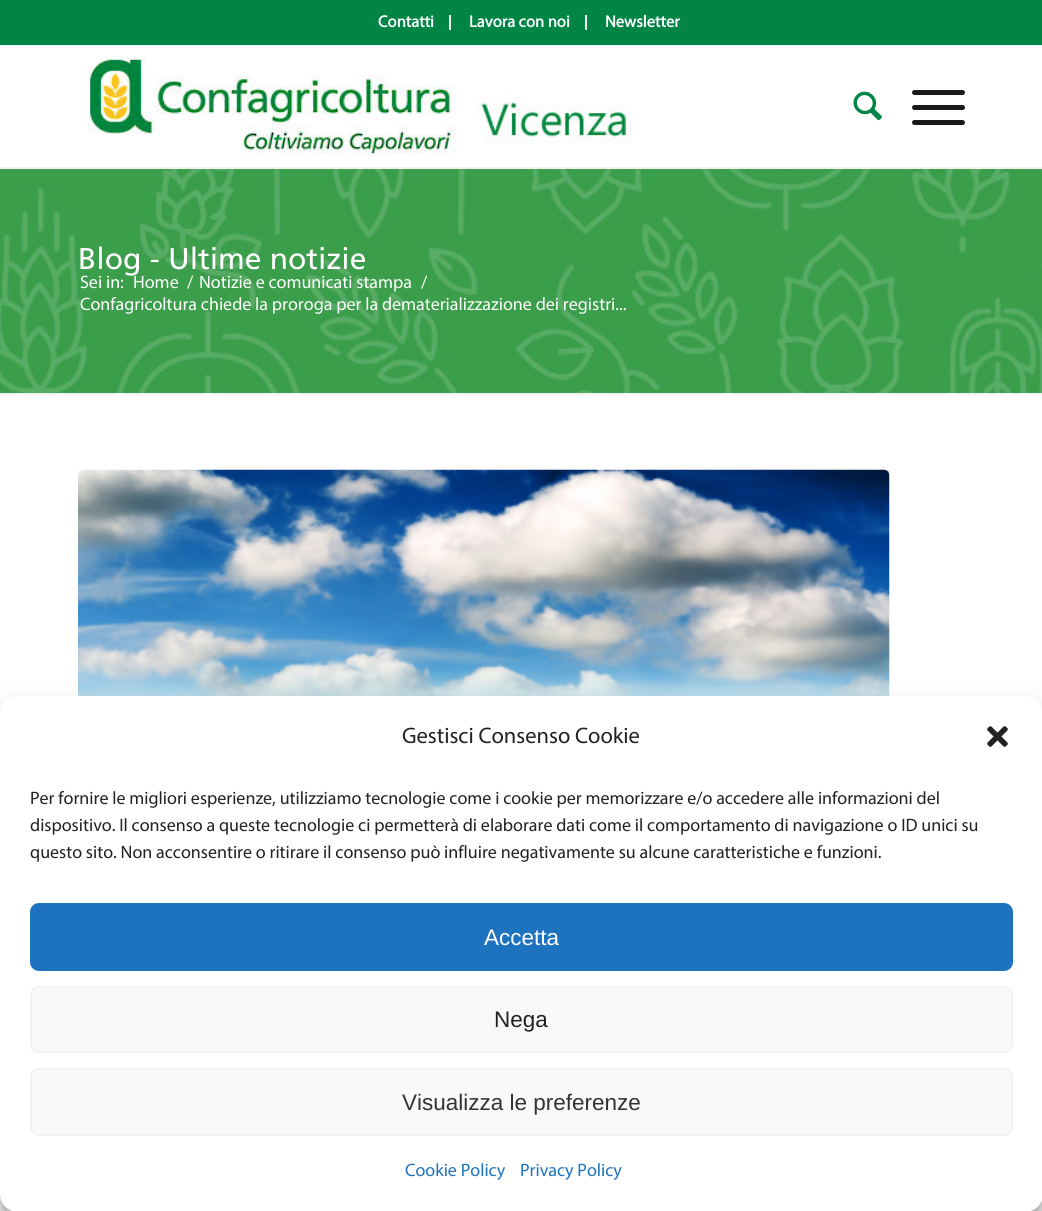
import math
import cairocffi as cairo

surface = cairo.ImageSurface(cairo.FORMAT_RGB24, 1042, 1211)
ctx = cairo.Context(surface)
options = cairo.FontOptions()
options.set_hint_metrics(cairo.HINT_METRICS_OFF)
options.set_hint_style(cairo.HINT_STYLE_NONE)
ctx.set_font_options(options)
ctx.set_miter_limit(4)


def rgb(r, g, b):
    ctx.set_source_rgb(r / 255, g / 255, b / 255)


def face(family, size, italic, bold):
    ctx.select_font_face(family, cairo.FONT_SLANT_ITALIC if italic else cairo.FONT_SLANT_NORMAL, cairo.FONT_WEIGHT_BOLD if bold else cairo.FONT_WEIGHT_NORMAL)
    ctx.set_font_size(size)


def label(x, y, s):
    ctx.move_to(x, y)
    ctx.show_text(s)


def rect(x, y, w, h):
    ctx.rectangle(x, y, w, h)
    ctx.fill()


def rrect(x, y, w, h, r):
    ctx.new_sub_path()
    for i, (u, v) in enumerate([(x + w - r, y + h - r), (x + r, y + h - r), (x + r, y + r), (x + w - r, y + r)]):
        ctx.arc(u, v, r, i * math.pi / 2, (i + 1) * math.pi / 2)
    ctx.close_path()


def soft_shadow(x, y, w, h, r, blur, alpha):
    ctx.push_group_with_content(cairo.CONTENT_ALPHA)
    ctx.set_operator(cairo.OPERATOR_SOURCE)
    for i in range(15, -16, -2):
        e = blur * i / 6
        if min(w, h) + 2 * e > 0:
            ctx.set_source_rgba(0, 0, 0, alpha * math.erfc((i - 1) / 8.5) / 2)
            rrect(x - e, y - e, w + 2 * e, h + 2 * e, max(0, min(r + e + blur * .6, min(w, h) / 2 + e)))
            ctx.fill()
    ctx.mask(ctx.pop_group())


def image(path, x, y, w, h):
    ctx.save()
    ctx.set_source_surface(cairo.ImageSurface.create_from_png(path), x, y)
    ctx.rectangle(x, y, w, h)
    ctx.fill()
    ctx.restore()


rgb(255, 255, 255)
ctx.paint()
rgb(0, 133, 69)
rect(0, 0, 1042, 45)
rgb(242, 242, 242)
rect(0, 45, 1042, 2)
rect(449, 15, 2, 15)
face('Myriad', 16.5, 0, 1)
rgb(255, 255, 255)
label(378, 27, 'Contatti')
rgb(242, 242, 242)
rect(585, 15, 2, 15)
rgb(255, 255, 255)
label(469, 27, 'Lavora con noi')
label(605, 27, 'Newsletter')
rgb(242, 242, 242)
rect(0, 167, 1042, 2)
image('image0.png', 88, 56, 543, 98)
image('image1.png', 853, 91, 29, 30)
rgb(26, 26, 26)
rrect(912, 105, 53, 5, 2.5)
ctx.fill()
rrect(912, 90, 53, 5, 2.5)
ctx.fill()
rrect(912, 120, 53, 5, 2.5)
ctx.fill()
image('image2.png', 0, 169, 1042, 224)
face('Frutiger', 30, 0, 0)
rgb(255, 255, 255)
label(78, 269, 'Blog - Ultime notizie')
face('Myriad', 18, 0, 0)
label(80, 288, 'Sei in:')
label(133, 288, 'Home')
label(187, 288, '/')
label(199, 288, 'Notizie e comunicati stampa')
label(421, 288, '/')
label(80, 310, 'Confagricoltura chiede la proroga per la dematerializzazione dei registri...')
rgb(242, 242, 242)
rect(0, 393, 1042, 2)
image('image3.png', 78, 469, 812, 227)
rgb(0, 0, 0)
soft_shadow(0, 705, 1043, 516, 18, 4.5, 0.23)
soft_shadow(0, 711, 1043, 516, 18, 15, 0.19)
rgb(255, 255, 255)
rrect(0, 696, 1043, 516, 18)
ctx.fill()
face('Myriad', 22.5, 0, 0)
rgb(34, 34, 34)
label(402, 743, 'Gestisci Consenso Cookie')
image('image4.png', 987, 726, 21, 21)
face('Myriad', 18, 0, 0)
label(30, 804, 'Per fornire le migliori esperienze, utilizziamo tecnologie come i cookie per memorizzare e/o accedere alle informazioni del')
label(30, 831, 'dispositivo. Il consenso a queste tecnologie ci permetterà di elaborare dati come il comportamento di navigazione o ID unici su')
label(30, 858, 'questo sito. Non acconsentire o ritirare il consenso può influire negativamente su alcune caratteristiche e funzioni.')
rgb(30, 115, 190)
rrect(31, 904, 981, 66, 8)
ctx.fill_preserve()
ctx.stroke()
face('Liberation Sans', 22.5, 0, 0)
rgb(255, 255, 255)
label(484, 945, 'Accetta')
rgb(249, 249, 249)
rrect(31, 987, 981, 65, 8)
ctx.fill_preserve()
rgb(242, 242, 242)
ctx.stroke()
rgb(34, 34, 34)
label(494, 1027, 'Nega')
rgb(249, 249, 249)
rrect(31, 1069, 981, 66, 8)
ctx.fill_preserve()
rgb(242, 242, 242)
ctx.stroke()
rgb(51, 51, 51)
label(402, 1110, 'Visualizza le preferenze')
face('Myriad', 18, 0, 0)
rgb(30, 115, 190)
label(405, 1176, 'Cookie Policy')
label(520, 1176, 'Privacy Policy')
surface.write_to_png('render.png')
